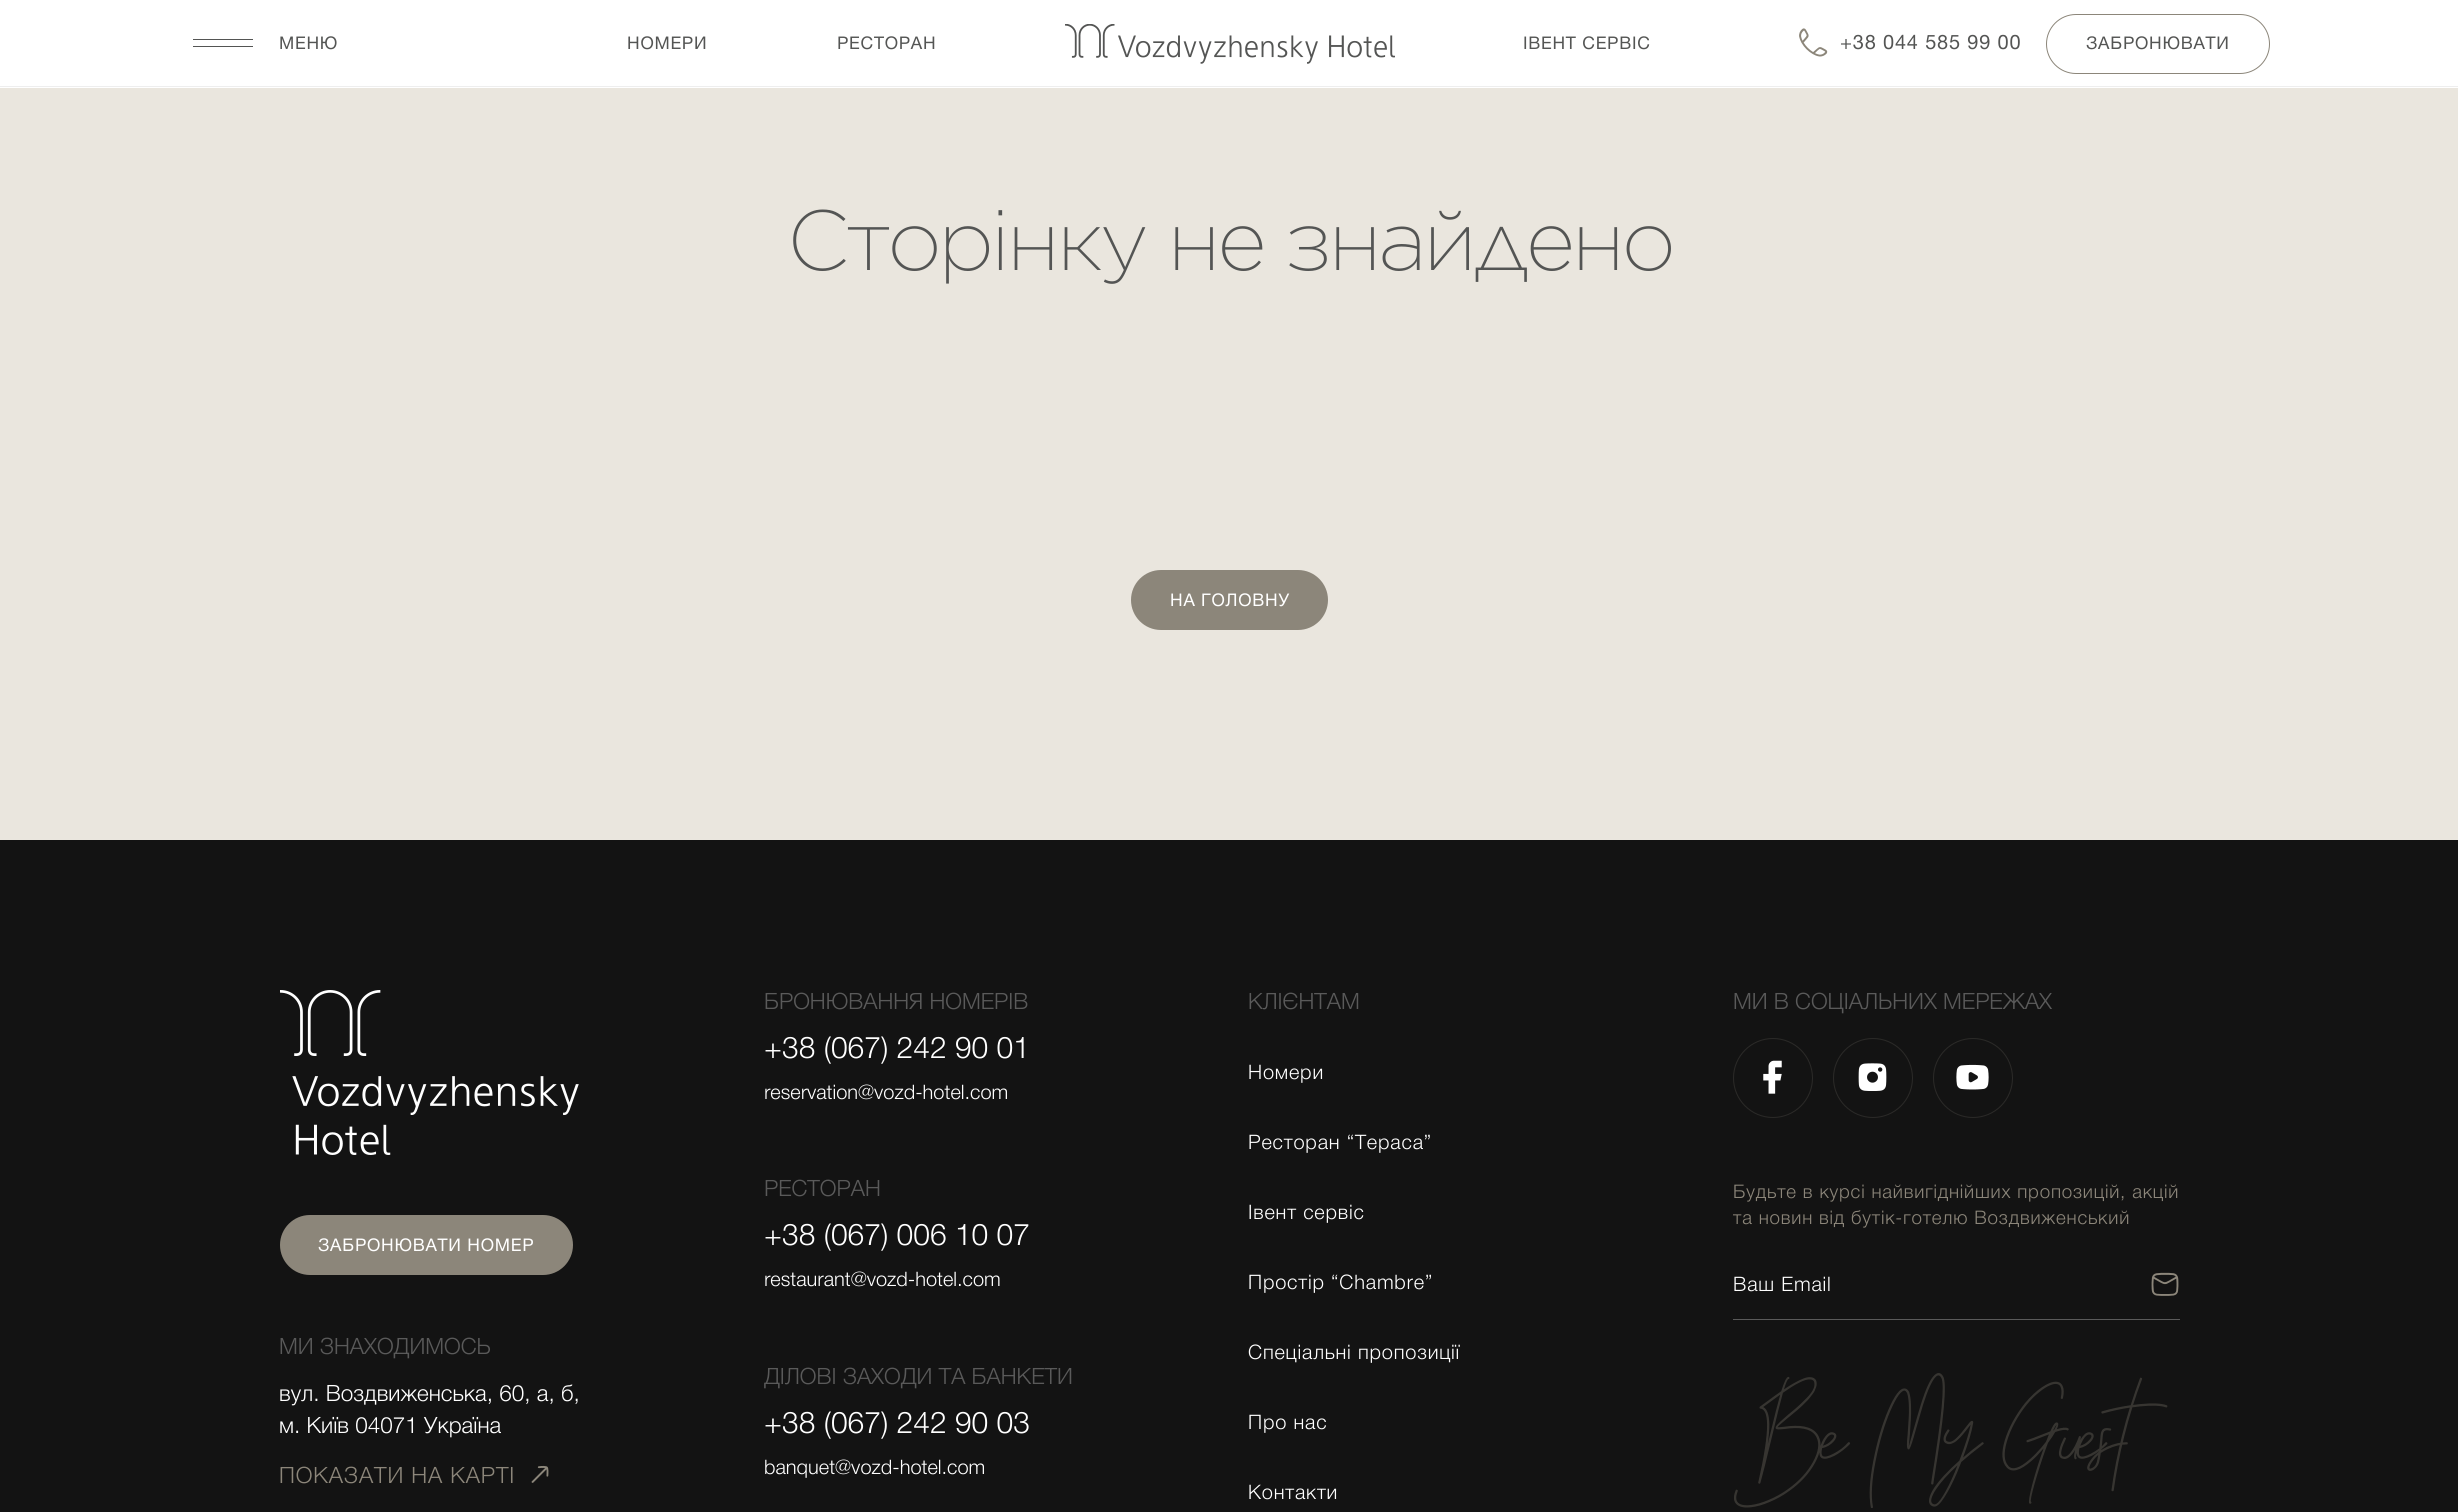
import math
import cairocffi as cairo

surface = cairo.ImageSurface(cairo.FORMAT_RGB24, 2458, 1512)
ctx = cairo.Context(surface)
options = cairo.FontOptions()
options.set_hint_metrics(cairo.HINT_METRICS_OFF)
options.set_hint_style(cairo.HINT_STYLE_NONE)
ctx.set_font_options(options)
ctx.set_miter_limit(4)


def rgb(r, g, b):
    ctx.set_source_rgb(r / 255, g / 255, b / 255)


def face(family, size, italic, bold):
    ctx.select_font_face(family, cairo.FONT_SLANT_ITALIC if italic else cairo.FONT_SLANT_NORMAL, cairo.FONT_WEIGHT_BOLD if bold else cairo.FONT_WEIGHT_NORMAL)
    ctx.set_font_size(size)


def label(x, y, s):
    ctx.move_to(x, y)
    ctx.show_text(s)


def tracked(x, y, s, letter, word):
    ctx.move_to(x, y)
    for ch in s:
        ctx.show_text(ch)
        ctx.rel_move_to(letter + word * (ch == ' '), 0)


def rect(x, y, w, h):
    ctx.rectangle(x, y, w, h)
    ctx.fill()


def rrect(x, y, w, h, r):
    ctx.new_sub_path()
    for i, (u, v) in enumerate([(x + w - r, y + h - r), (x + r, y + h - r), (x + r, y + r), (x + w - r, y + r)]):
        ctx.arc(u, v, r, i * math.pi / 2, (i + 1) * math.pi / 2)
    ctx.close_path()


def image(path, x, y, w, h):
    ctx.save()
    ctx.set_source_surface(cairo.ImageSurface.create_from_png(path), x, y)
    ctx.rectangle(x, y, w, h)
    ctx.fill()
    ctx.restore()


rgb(234, 230, 222)
ctx.paint()
rgb(255, 255, 255)
rect(0, 0, 2458, 88)
rgb(238, 238, 238)
rect(0, 86, 2458, 1)
rgb(84, 85, 84)
rect(193, 39, 60, 1)
rect(193, 46, 60, 1)
face('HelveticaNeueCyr', 17.5, 0, 0)
tracked(279, 49, 'МЕНЮ', 0.75, 0)
tracked(627, 49, 'НОМЕРИ', 0.75, 0)
tracked(837, 49, 'РЕСТОРАН', 0.75, 0)
image('image0.png', 1065, 24, 330, 40)
tracked(1523, 49, 'ІВЕНТ СЕРВІС', 0.75, 0)
image('image1.png', 1799, 28, 29, 29)
face('HelveticaNeueCyr', 20, 0, 0)
tracked(1840, 49, '+38 044 585 99 00', 0.8, 0)
rrect(2046.5, 14.5, 223, 59, 29.5)
rgb(140, 134, 122)
ctx.set_line_width(1)
ctx.stroke()
face('HelveticaNeueCyr', 17.5, 0, 0)
rgb(84, 85, 84)
tracked(2086, 49, 'ЗАБРОНЮВАТИ', 0.75, 0)
face('Gotham Light', 85, 0, 0)
tracked(787, 270, 'Сторінку не знайдено', -3.4, 0)
rgb(140, 134, 122)
rrect(1131, 570, 197, 60, 30)
ctx.fill()
face('HelveticaNeueCyr', 17.5, 0, 0)
rgb(255, 255, 255)
tracked(1170, 606, 'НА ГОЛОВНУ', 0.75, 0)
rgb(19, 19, 19)
rect(0, 840, 2458, 672)
face('HelveticaNeueCyr Light', 22.5, 0, 0)
rgb(90, 90, 90)
label(764, 1009, 'БРОНЮВАННЯ НОМЕРІВ')
face('HelveticaNeueCyr Light', 30, 0, 0)
rgb(255, 255, 255)
label(764, 1058, '+38 (067) 242 90 01')
face('HelveticaNeueCyr Light', 20, 0, 0)
label(764, 1099, 'reservation@vozd-hotel.com')
face('HelveticaNeueCyr Light', 22.5, 0, 0)
rgb(90, 90, 90)
label(764, 1196, 'РЕСТОРАН')
face('HelveticaNeueCyr Light', 30, 0, 0)
rgb(255, 255, 255)
label(764, 1245, '+38 (067) 006 10 07')
face('HelveticaNeueCyr Light', 20, 0, 0)
label(764, 1286, 'restaurant@vozd-hotel.com')
face('HelveticaNeueCyr Light', 22.5, 0, 0)
rgb(90, 90, 90)
label(764, 1384, 'ДІЛОВІ ЗАХОДИ ТА БАНКЕТИ')
face('HelveticaNeueCyr Light', 30, 0, 0)
rgb(255, 255, 255)
label(764, 1433, '+38 (067) 242 90 03')
face('HelveticaNeueCyr Light', 20, 0, 0)
label(764, 1474, 'banquet@vozd-hotel.com')
face('HelveticaNeueCyr Light', 22.5, 0, 0)
rgb(90, 90, 90)
label(1248, 1009, 'КЛІЄНТАМ')
face('HelveticaNeueCyr Light', 20, 0, 0)
rgb(255, 255, 255)
tracked(1248, 1079, 'Номери', 0.8, 0)
tracked(1248, 1149, 'Ресторан “Тераса”', 0.8, 0)
tracked(1248, 1219, 'Івент сервіс', 0.8, 0)
tracked(1248, 1289, 'Простір “Chambre”', 0.8, 0)
tracked(1248, 1359, 'Спеціальні пропозиції', 0.8, 0)
tracked(1248, 1429, 'Про нас', 0.8, 0)
tracked(1248, 1499, 'Контакти', 0.8, 0)
face('HelveticaNeueCyr Light', 22.5, 0, 0)
rgb(90, 90, 90)
label(1733, 1009, 'МИ В СОЦІАЛЬНИХ МЕРЕЖАХ')
ctx.new_path()
ctx.arc(1773, 1078, 39.5, 0, 2 * math.pi)
rgb(43, 42, 40)
ctx.stroke()
image('image2.png', 1763, 1060, 19, 34)
ctx.arc(1873, 1078, 39.5, 0, 2 * math.pi)
ctx.stroke()
image('image3.png', 1858, 1063, 29, 28)
image('image4.png', 1878, 1067, 5, 5)
image('image5.png', 1867, 1071, 11, 12)
ctx.arc(1973, 1078, 39.5, 0, 2 * math.pi)
ctx.stroke()
image('image6.png', 1956, 1064, 33, 26)
image('image7.png', 1968, 1072, 10, 11)
face('HelveticaNeueCyr Light', 18.75, 0, 0)
rgb(140, 134, 122)
tracked(1733, 1198, 'Будьте в курсі найвигіднійших пропозицій, акцій', 0.8, 0)
tracked(1733, 1224, 'та новин від бутік-готелю Воздвиженський', 0.8, 0)
rgb(90, 90, 90)
rect(1733, 1319, 447, 1)
face('HelveticaNeueCyr Light', 20, 0, 0)
rgb(255, 255, 255)
tracked(1733, 1291, 'Ваш Email', 0.8, 0)
image('image8.png', 2151, 1272, 28, 24)
image('image9.png', 1734, 1373, 434, 135)
image('image10.png', 280, 990, 299, 165)
rgb(140, 134, 122)
rrect(280, 1215, 293, 60, 30)
ctx.fill()
face('HelveticaNeueCyr', 17.5, 0, 0)
rgb(255, 255, 255)
tracked(318, 1251, 'ЗАБРОНЮВАТИ НОМЕР', 0.75, 0)
face('HelveticaNeueCyr Light', 22.5, 0, 0)
rgb(90, 90, 90)
label(279, 1354, 'МИ ЗНАХОДИМОСЬ')
rgb(255, 255, 255)
label(279, 1401, 'вул. Воздвиженська, 60, а, б,')
label(279, 1433, 'м. Київ 04071 Україна')
rgb(140, 134, 122)
tracked(279, 1483, 'ПОКАЗАТИ НА КАРТІ', 0.9, 0)
image('image11.png', 531, 1465, 18, 18)
surface.write_to_png('render.png')
